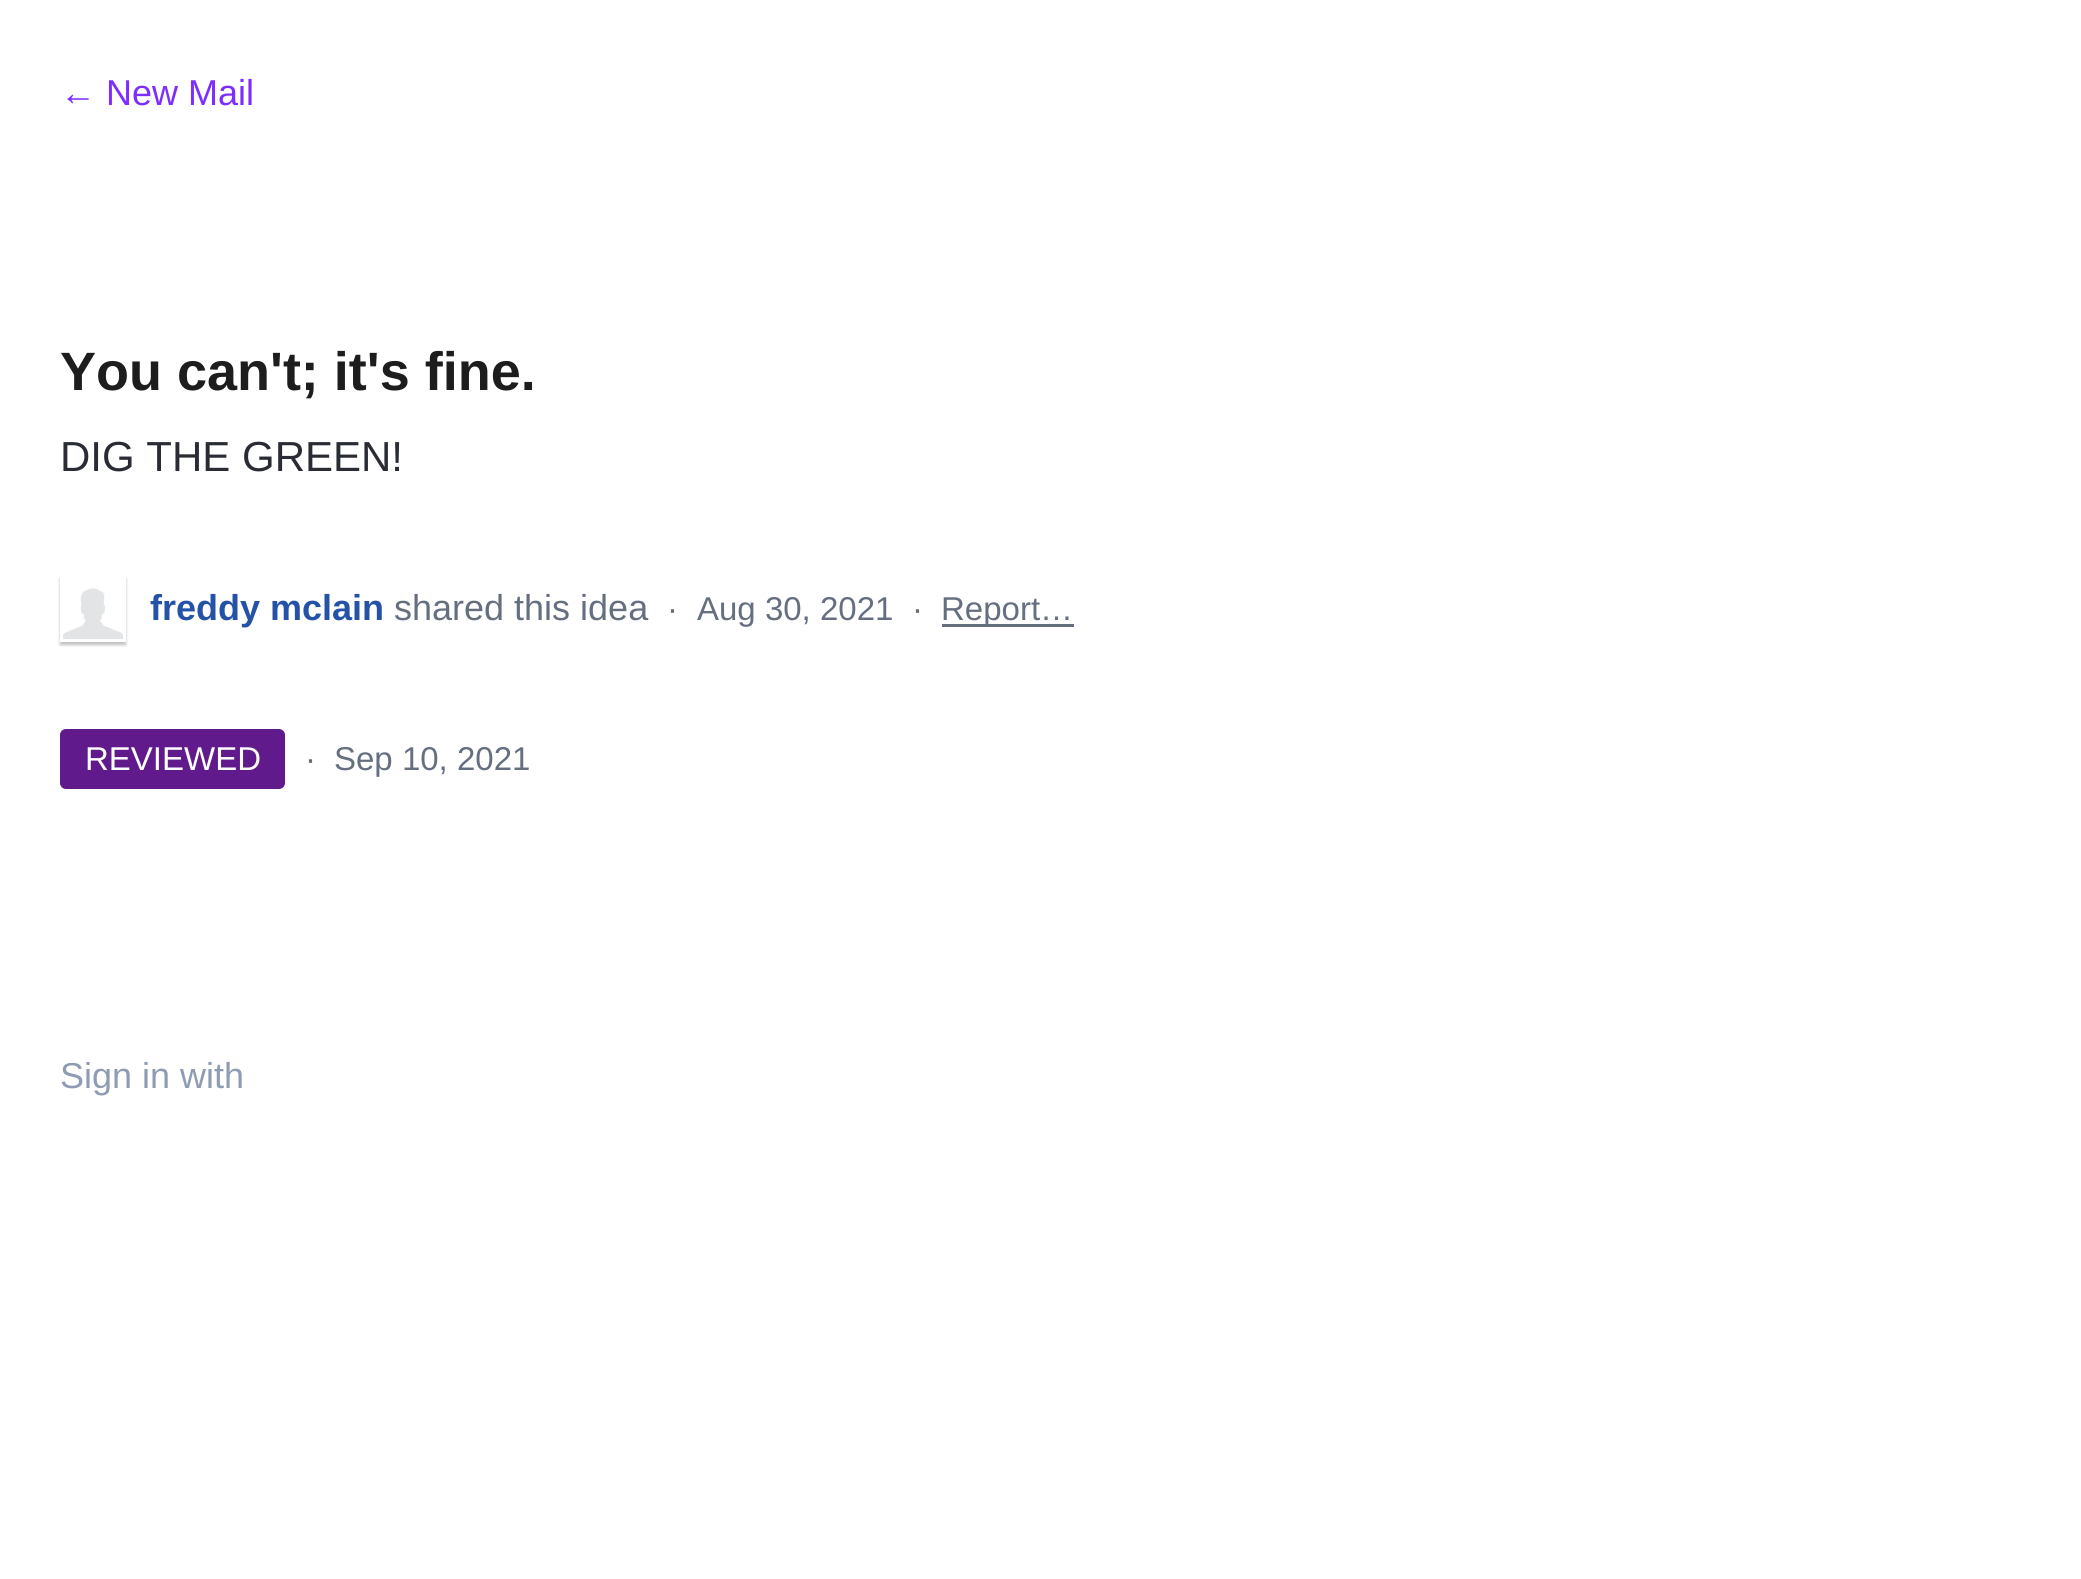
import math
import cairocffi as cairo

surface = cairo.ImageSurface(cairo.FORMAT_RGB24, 2081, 1579)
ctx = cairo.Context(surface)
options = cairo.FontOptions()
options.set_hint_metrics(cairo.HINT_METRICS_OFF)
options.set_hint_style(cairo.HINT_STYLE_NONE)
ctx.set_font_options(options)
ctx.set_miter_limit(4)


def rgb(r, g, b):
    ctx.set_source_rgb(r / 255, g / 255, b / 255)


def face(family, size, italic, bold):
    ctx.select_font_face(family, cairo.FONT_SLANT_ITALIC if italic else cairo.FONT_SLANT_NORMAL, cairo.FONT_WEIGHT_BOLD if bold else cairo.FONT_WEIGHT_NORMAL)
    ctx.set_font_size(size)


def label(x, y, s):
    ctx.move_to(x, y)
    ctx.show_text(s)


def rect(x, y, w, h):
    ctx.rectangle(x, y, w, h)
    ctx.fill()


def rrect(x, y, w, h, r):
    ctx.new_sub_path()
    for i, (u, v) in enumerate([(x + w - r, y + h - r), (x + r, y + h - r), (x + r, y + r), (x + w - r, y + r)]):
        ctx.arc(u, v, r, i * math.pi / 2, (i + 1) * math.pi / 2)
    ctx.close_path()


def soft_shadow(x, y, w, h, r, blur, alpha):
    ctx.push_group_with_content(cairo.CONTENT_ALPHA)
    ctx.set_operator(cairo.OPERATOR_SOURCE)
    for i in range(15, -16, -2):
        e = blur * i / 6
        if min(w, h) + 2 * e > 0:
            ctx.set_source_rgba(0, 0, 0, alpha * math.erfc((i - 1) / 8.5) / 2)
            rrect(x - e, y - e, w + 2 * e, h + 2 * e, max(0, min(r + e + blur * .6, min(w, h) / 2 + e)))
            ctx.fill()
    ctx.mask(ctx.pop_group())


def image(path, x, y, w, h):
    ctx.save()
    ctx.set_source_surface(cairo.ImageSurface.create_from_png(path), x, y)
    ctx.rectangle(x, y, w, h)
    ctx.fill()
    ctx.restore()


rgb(255, 255, 255)
ctx.paint()
face('Liberation Sans', 36, 0, 0)
rgb(125, 46, 255)
label(60, 105, '← New Mail')
face('Liberation Sans', 54, 0, 1)
rgb(29, 29, 29)
label(60, 390, 'You can\'t; it\'s fine.')
face('Liberation Sans', 42, 0, 0)
rgb(41, 44, 51)
label(60, 471, 'DIG THE GREEN!')
ctx.save()
ctx.set_fill_rule(cairo.FILL_RULE_EVEN_ODD)
ctx.new_path()
ctx.move_to(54, 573)
ctx.line_to(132, 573)
ctx.line_to(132, 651)
ctx.line_to(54, 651)
ctx.close_path()
ctx.move_to(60, 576)
ctx.line_to(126, 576)
ctx.line_to(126, 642)
ctx.line_to(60, 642)
ctx.close_path()
ctx.clip()
rgb(0, 0, 0)
soft_shadow(60, 579, 66, 66, 0, 1.5, 0.25)
ctx.restore()
image('image0.png', 63, 588, 60, 51)
face('Liberation Sans', 36, 0, 1)
rgb(36, 82, 166)
label(150, 620, 'freddy mclain')
face('Liberation Sans', 36, 0, 0)
rgb(102, 111, 128)
label(394, 620, 'shared this idea')
face('Liberation Sans', 33, 0, 0)
rgb(100, 107, 114)
label(667, 620, '·')
rgb(102, 111, 128)
label(697, 620, 'Aug 30, 2021')
rgb(100, 107, 114)
label(912, 620, '·')
rgb(102, 111, 128)
rect(942, 624, 132, 3)
label(941, 620, 'Report…')
rgb(96, 26, 140)
rrect(60, 729, 225, 60, 6)
ctx.fill()
rgb(255, 255, 255)
label(85, 770, 'REVIEWED')
rgb(100, 107, 114)
label(305, 770, '·')
rgb(102, 111, 128)
label(334, 770, 'Sep 10, 2021')
face('Liberation Sans', 36, 0, 0)
rgb(143, 155, 179)
label(60, 1088, 'Sign in with')
surface.write_to_png('render.png')
